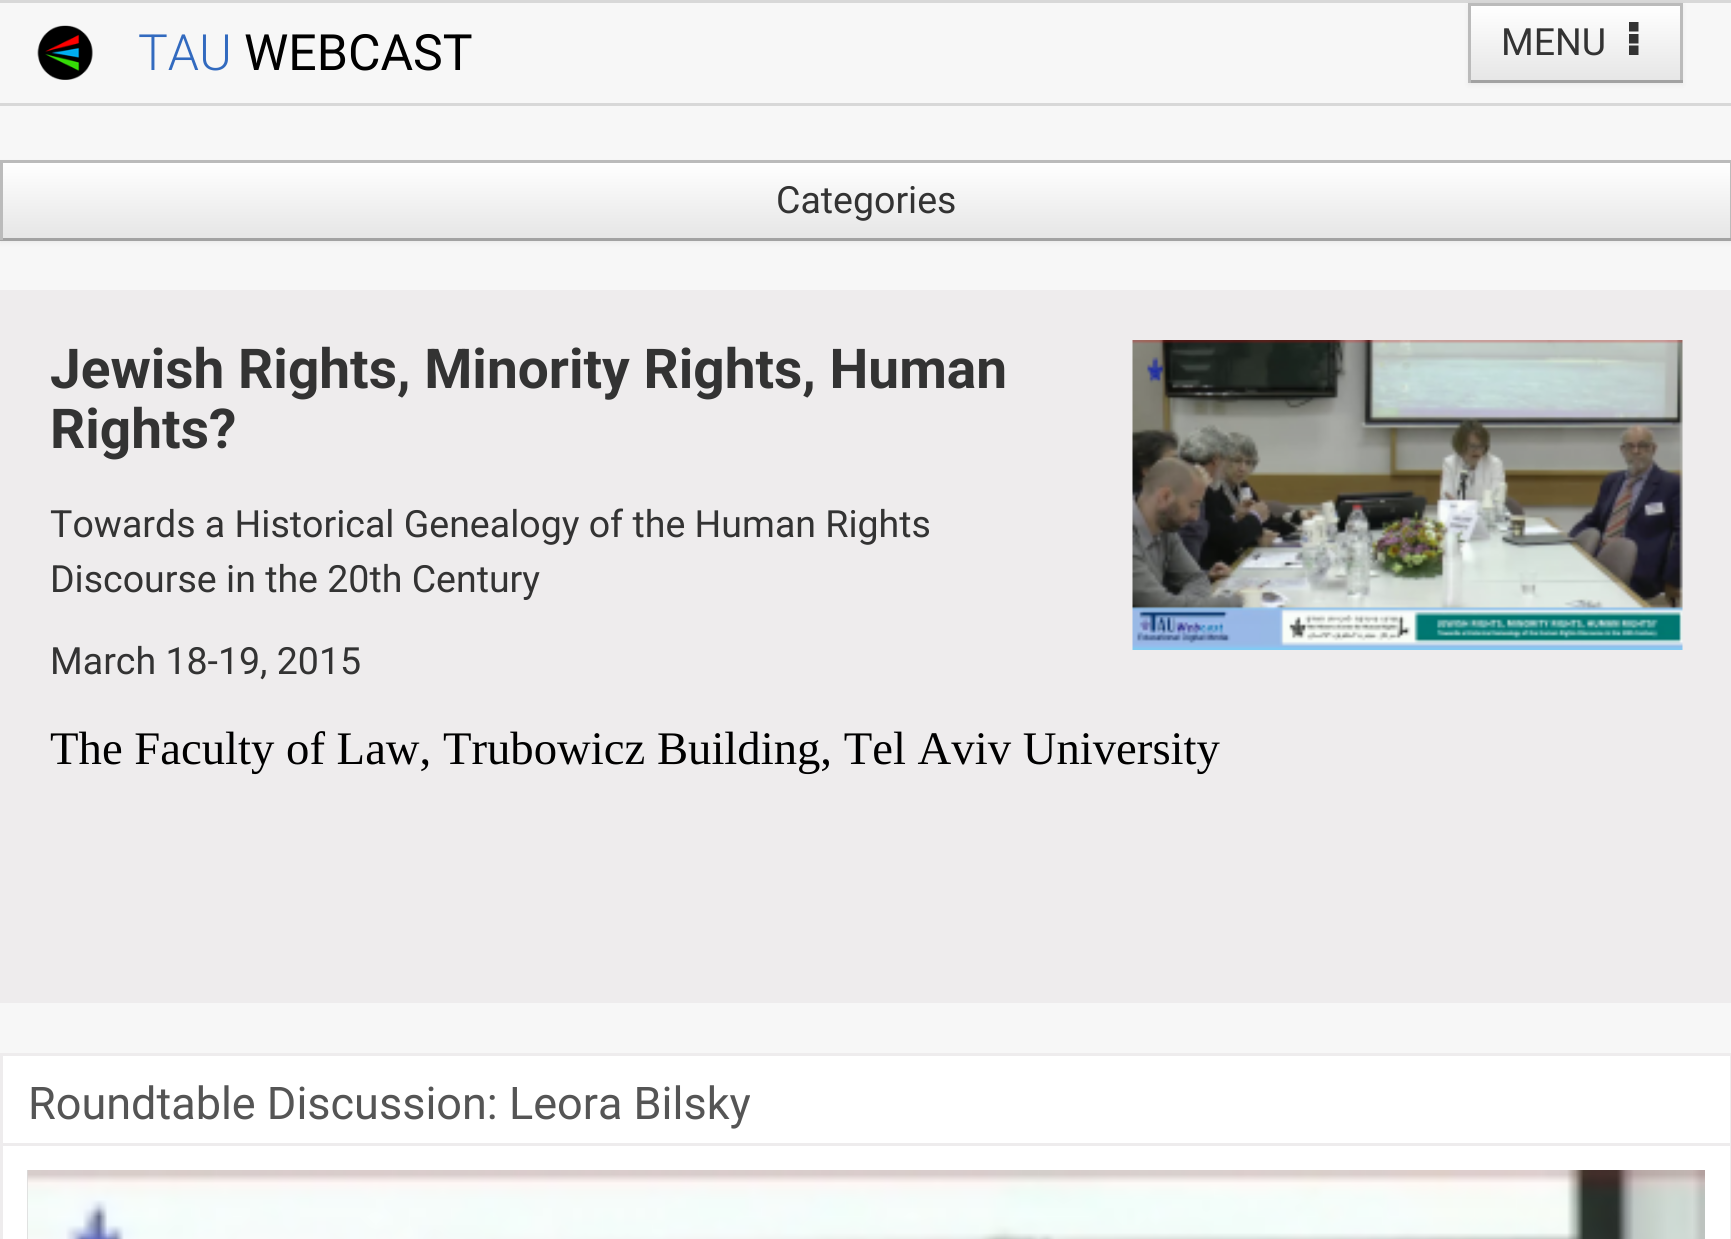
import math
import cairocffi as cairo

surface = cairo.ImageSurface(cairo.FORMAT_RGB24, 1731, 1239)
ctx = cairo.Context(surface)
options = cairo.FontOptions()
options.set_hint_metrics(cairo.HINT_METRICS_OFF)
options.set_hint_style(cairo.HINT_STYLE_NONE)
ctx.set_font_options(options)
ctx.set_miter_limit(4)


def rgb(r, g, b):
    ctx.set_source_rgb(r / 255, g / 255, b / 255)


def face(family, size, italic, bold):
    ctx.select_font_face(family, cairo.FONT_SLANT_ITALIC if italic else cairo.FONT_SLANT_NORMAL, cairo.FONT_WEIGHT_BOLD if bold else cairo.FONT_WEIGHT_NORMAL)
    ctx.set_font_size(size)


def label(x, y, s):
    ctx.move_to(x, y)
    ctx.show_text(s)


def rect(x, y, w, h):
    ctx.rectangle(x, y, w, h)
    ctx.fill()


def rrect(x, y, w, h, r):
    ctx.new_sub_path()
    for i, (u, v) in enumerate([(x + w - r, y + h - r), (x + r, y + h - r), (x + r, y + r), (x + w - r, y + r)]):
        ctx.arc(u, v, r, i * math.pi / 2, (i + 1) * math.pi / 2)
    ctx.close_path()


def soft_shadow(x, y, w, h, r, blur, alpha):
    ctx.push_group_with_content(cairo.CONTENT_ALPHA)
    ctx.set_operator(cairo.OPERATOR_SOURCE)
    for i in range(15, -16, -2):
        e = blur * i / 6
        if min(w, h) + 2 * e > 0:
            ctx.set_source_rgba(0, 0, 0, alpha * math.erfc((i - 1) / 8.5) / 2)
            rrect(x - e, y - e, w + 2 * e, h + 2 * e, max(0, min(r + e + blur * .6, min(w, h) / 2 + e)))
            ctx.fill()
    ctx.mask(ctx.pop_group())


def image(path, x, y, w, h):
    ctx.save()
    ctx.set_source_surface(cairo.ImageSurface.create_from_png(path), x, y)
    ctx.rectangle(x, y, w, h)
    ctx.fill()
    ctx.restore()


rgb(247, 247, 247)
ctx.paint()
rgb(216, 216, 216)
rect(0, 0, 1731, 3)
rect(0, 103, 1731, 3)
image('image0.png', 37, 25, 56, 55)
face('Roboto Light', 50, 0, 0)
rgb(50, 106, 191)
label(138, 70, 'TAU')
face('Roboto', 50, 0, 0)
rgb(0, 0, 0)
label(244, 70, 'WEBCAST')
rgb(0, 0, 0)
soft_shadow(1468, 5, 215, 80, 0, 2.5, 0.05)
gradient = cairo.LinearGradient(1575, 5, 1575, 80)
gradient.add_color_stop_rgba(0, 1, 1, 1, 1)
gradient.add_color_stop_rgba(1, 0.902, 0.902, 0.902, 1)
ctx.set_source(gradient)
rect(1471, 6, 209, 74)
rgb(187, 187, 187)
rect(1468, 3, 215, 3)
rect(1680, 3, 3, 80)
rgb(162, 162, 162)
rect(1468, 80, 215, 3)
rgb(187, 187, 187)
rect(1468, 3, 3, 80)
face('Roboto', 37.5, 0, 0)
rgb(51, 51, 51)
label(1501, 55, 'MENU')
ctx.new_path()
ctx.move_to(1629, 22)
ctx.line_to(1629, 31.5)
ctx.line_to(1638.5, 31.5)
ctx.line_to(1638.5, 22)
ctx.close_path()
ctx.move_to(1629, 34)
ctx.line_to(1629, 43.5)
ctx.line_to(1638.5, 43.5)
ctx.line_to(1638.5, 34)
ctx.close_path()
ctx.move_to(1629, 45.5)
ctx.line_to(1629, 55)
ctx.line_to(1638.5, 55)
ctx.line_to(1638.5, 45.5)
ctx.close_path()
ctx.fill()
rgb(0, 0, 0)
soft_shadow(0, 163, 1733, 80, 0, 2.5, 0.05)
gradient = cairo.LinearGradient(866, 162, 866, 238)
gradient.add_color_stop_rgba(0, 1, 1, 1, 1)
gradient.add_color_stop_rgba(1, 0.902, 0.902, 0.902, 1)
ctx.set_source(gradient)
rect(3, 163, 1727, 75)
rgb(187, 187, 187)
rect(0, 160, 1731, 3)
rect(1730, 160, 1, 80)
rgb(162, 162, 162)
rect(0, 238, 1731, 3)
rgb(187, 187, 187)
rect(0, 160, 3, 80)
rgb(51, 51, 51)
label(776, 213, 'Categories')
rgb(238, 236, 237)
rect(0, 290, 1731, 713)
face('Roboto', 55, 0, 1)
rgb(51, 51, 51)
label(50, 388, 'Jewish Rights, Minority Rights, Human')
label(50, 448, 'Rights?')
image('image1.png', 1132, 340, 551, 310)
face('Roboto', 37.5, 0, 0)
label(50, 537, 'Towards a Historical Genealogy of the Human Rights')
label(50, 592, 'Discourse in the 20th Century')
label(50, 674, 'March 18-19, 2015')
face('Liberation Serif', 46.7, 0, 0)
rgb(0, 0, 0)
label(50, 764, 'The Faculty of Law, Trubowicz Building, Tel Aviv University')
rgb(255, 255, 255)
ctx.rectangle(1.5, 1054.5, 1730, 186)
ctx.fill_preserve()
rgb(238, 236, 237)
ctx.set_line_width(3)
ctx.stroke()
rect(3, 1143, 1727, 3)
face('Roboto', 45, 0, 0)
rgb(85, 85, 85)
label(28, 1119, 'Roundtable Discussion: Leora Bilsky')
rgb(218, 218, 218)
rect(27, 1170, 1, 69)
image('image2.png', 27, 1170, 1678, 69)
surface.write_to_png('render.png')
